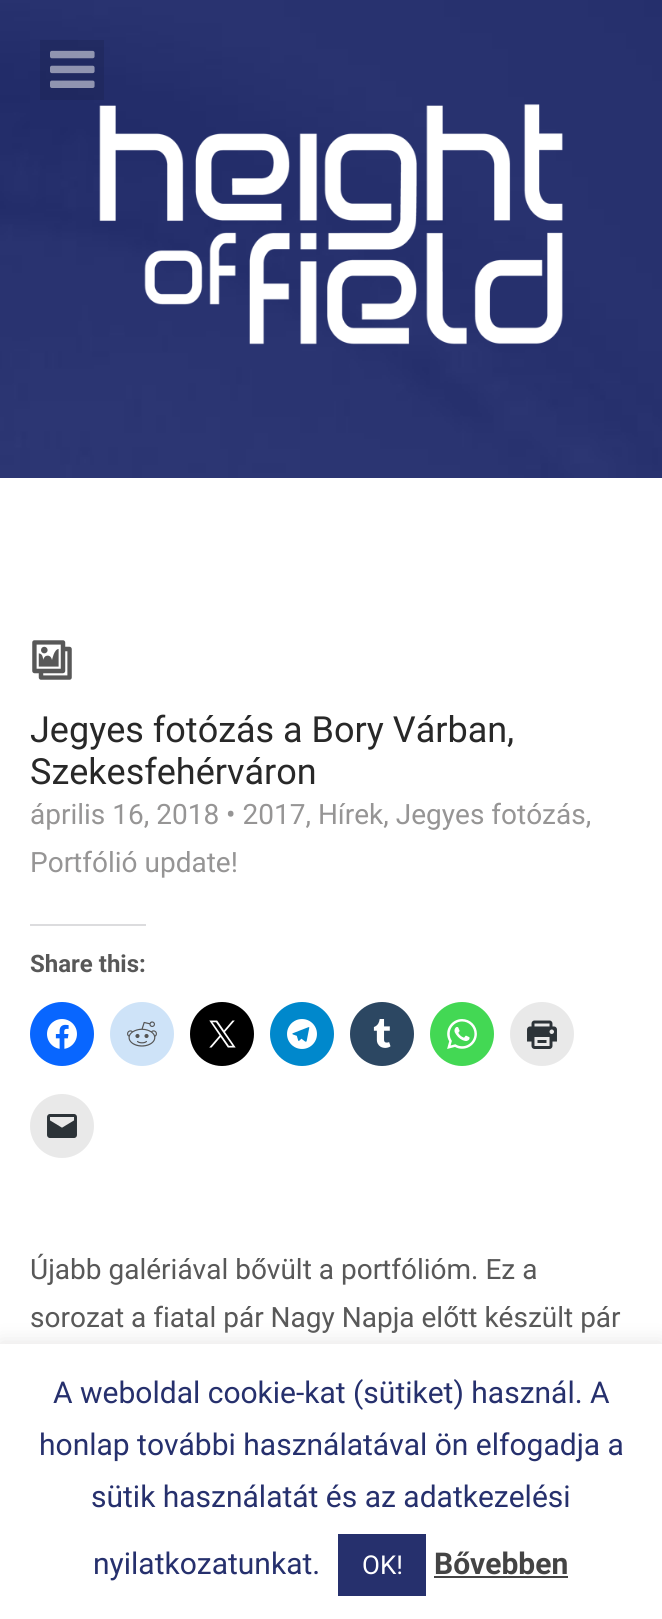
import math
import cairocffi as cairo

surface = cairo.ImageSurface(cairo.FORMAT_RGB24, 662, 1619)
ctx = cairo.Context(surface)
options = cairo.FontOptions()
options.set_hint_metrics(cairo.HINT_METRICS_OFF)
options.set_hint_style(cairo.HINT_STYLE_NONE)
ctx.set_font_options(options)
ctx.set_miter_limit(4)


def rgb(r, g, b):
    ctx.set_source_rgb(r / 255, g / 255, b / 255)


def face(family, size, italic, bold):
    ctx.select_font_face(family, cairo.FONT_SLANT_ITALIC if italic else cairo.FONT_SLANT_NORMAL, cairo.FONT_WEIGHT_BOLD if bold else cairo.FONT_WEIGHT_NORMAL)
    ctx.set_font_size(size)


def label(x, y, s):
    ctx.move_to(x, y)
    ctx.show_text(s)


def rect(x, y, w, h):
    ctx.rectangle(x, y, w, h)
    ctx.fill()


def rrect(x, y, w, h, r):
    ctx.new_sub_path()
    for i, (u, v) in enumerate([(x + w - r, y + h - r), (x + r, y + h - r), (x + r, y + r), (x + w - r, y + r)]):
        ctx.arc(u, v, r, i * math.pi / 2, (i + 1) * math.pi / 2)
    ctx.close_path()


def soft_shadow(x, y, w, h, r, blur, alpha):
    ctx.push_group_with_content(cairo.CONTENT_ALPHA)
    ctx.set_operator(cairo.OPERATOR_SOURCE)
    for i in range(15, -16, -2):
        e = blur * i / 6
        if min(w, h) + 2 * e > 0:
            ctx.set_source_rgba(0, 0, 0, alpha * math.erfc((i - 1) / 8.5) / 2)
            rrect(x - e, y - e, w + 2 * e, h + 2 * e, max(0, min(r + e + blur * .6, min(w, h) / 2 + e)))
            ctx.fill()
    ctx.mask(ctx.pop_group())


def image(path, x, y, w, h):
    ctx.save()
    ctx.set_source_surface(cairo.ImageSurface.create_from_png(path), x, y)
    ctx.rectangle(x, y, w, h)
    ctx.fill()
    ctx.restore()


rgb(255, 255, 255)
ctx.paint()
image('image0.png', 0, 0, 662, 478)
ctx.set_source_rgba(0, 0, 0, 0.1)
rect(40, 40, 64, 60)
image('image1.png', 50, 50, 45, 38)
image('image2.png', 99, 104, 464, 241)
image('image3.png', 32, 640, 40, 40)
face('Roboto', 36, 0, 0)
rgb(40, 40, 40)
label(30, 742, 'Jegyes fotózás a Bory Várban,')
label(30, 784, 'Szekesfehérváron')
face('Roboto', 28, 0, 0)
rgb(150, 149, 149)
label(30, 824, 'április 16, 2018 • 2017, Hírek, Jegyes fotózás,')
label(30, 872, 'Portfólió update!')
rgb(220, 220, 222)
rect(30, 924, 116, 2)
face('Roboto', 24, 0, 1)
rgb(88, 88, 88)
label(30, 972, 'Share this:')
rgb(8, 102, 255)
ctx.new_path()
ctx.arc(62, 1034, 32, 0, 2 * math.pi)
ctx.fill()
image('image4.png', 47, 1019, 30, 30)
rgb(206, 227, 248)
ctx.arc(142, 1034, 32, 0, 2 * math.pi)
ctx.fill()
image('image5.png', 127, 1021, 30, 26)
rgb(0, 0, 0)
ctx.arc(222, 1034, 32, 0, 2 * math.pi)
ctx.fill()
image('image6.png', 209, 1020, 27, 28)
rgb(0, 136, 204)
ctx.arc(302, 1034, 32, 0, 2 * math.pi)
ctx.fill()
image('image7.png', 287, 1019, 30, 30)
rgb(44, 71, 98)
ctx.arc(382, 1034, 32, 0, 2 * math.pi)
ctx.fill()
image('image8.png', 373, 1019, 18, 29)
rgb(67, 216, 84)
ctx.arc(462, 1034, 32, 0, 2 * math.pi)
ctx.fill()
image('image9.png', 447, 1019, 30, 30)
rgb(233, 233, 233)
ctx.arc(542, 1034, 32, 0, 2 * math.pi)
ctx.fill()
image('image10.png', 527, 1020, 30, 29)
ctx.arc(62, 1126, 32, 0, 2 * math.pi)
ctx.fill()
image('image11.png', 47, 1114, 30, 24)
face('Roboto', 28, 0, 0)
rgb(88, 88, 88)
label(30, 1279, 'Újabb galériával bővült a portfólióm. Ez a')
label(30, 1327, 'sorozat a fiatal pár Nagy Napja előtt készült pár')
rgb(172, 171, 171)
soft_shadow(0, 1342, 662, 276, 0, 10, 0.3)
rgb(255, 255, 255)
rect(0, 1344, 662, 275)
face('Roboto', 30, 0, 0)
rgb(38, 48, 109)
label(53, 1403, 'A weboldal cookie-kat (sütiket) használ. A')
label(39, 1455, 'honlap további használatával ön elfogadja a')
label(91, 1507, 'sütik használatát és az adatkezelési')
label(93, 1574, 'nyilatkozatunkat.')
rect(338, 1534, 88, 62)
face('Roboto', 26, 0, 0)
rgb(255, 255, 255)
label(362, 1574, 'OK!')
face('Roboto', 30, 0, 1)
rgb(68, 68, 68)
label(434, 1574, 'Bővebben')
rect(434, 1576, 134, 2)
surface.write_to_png('render.png')
